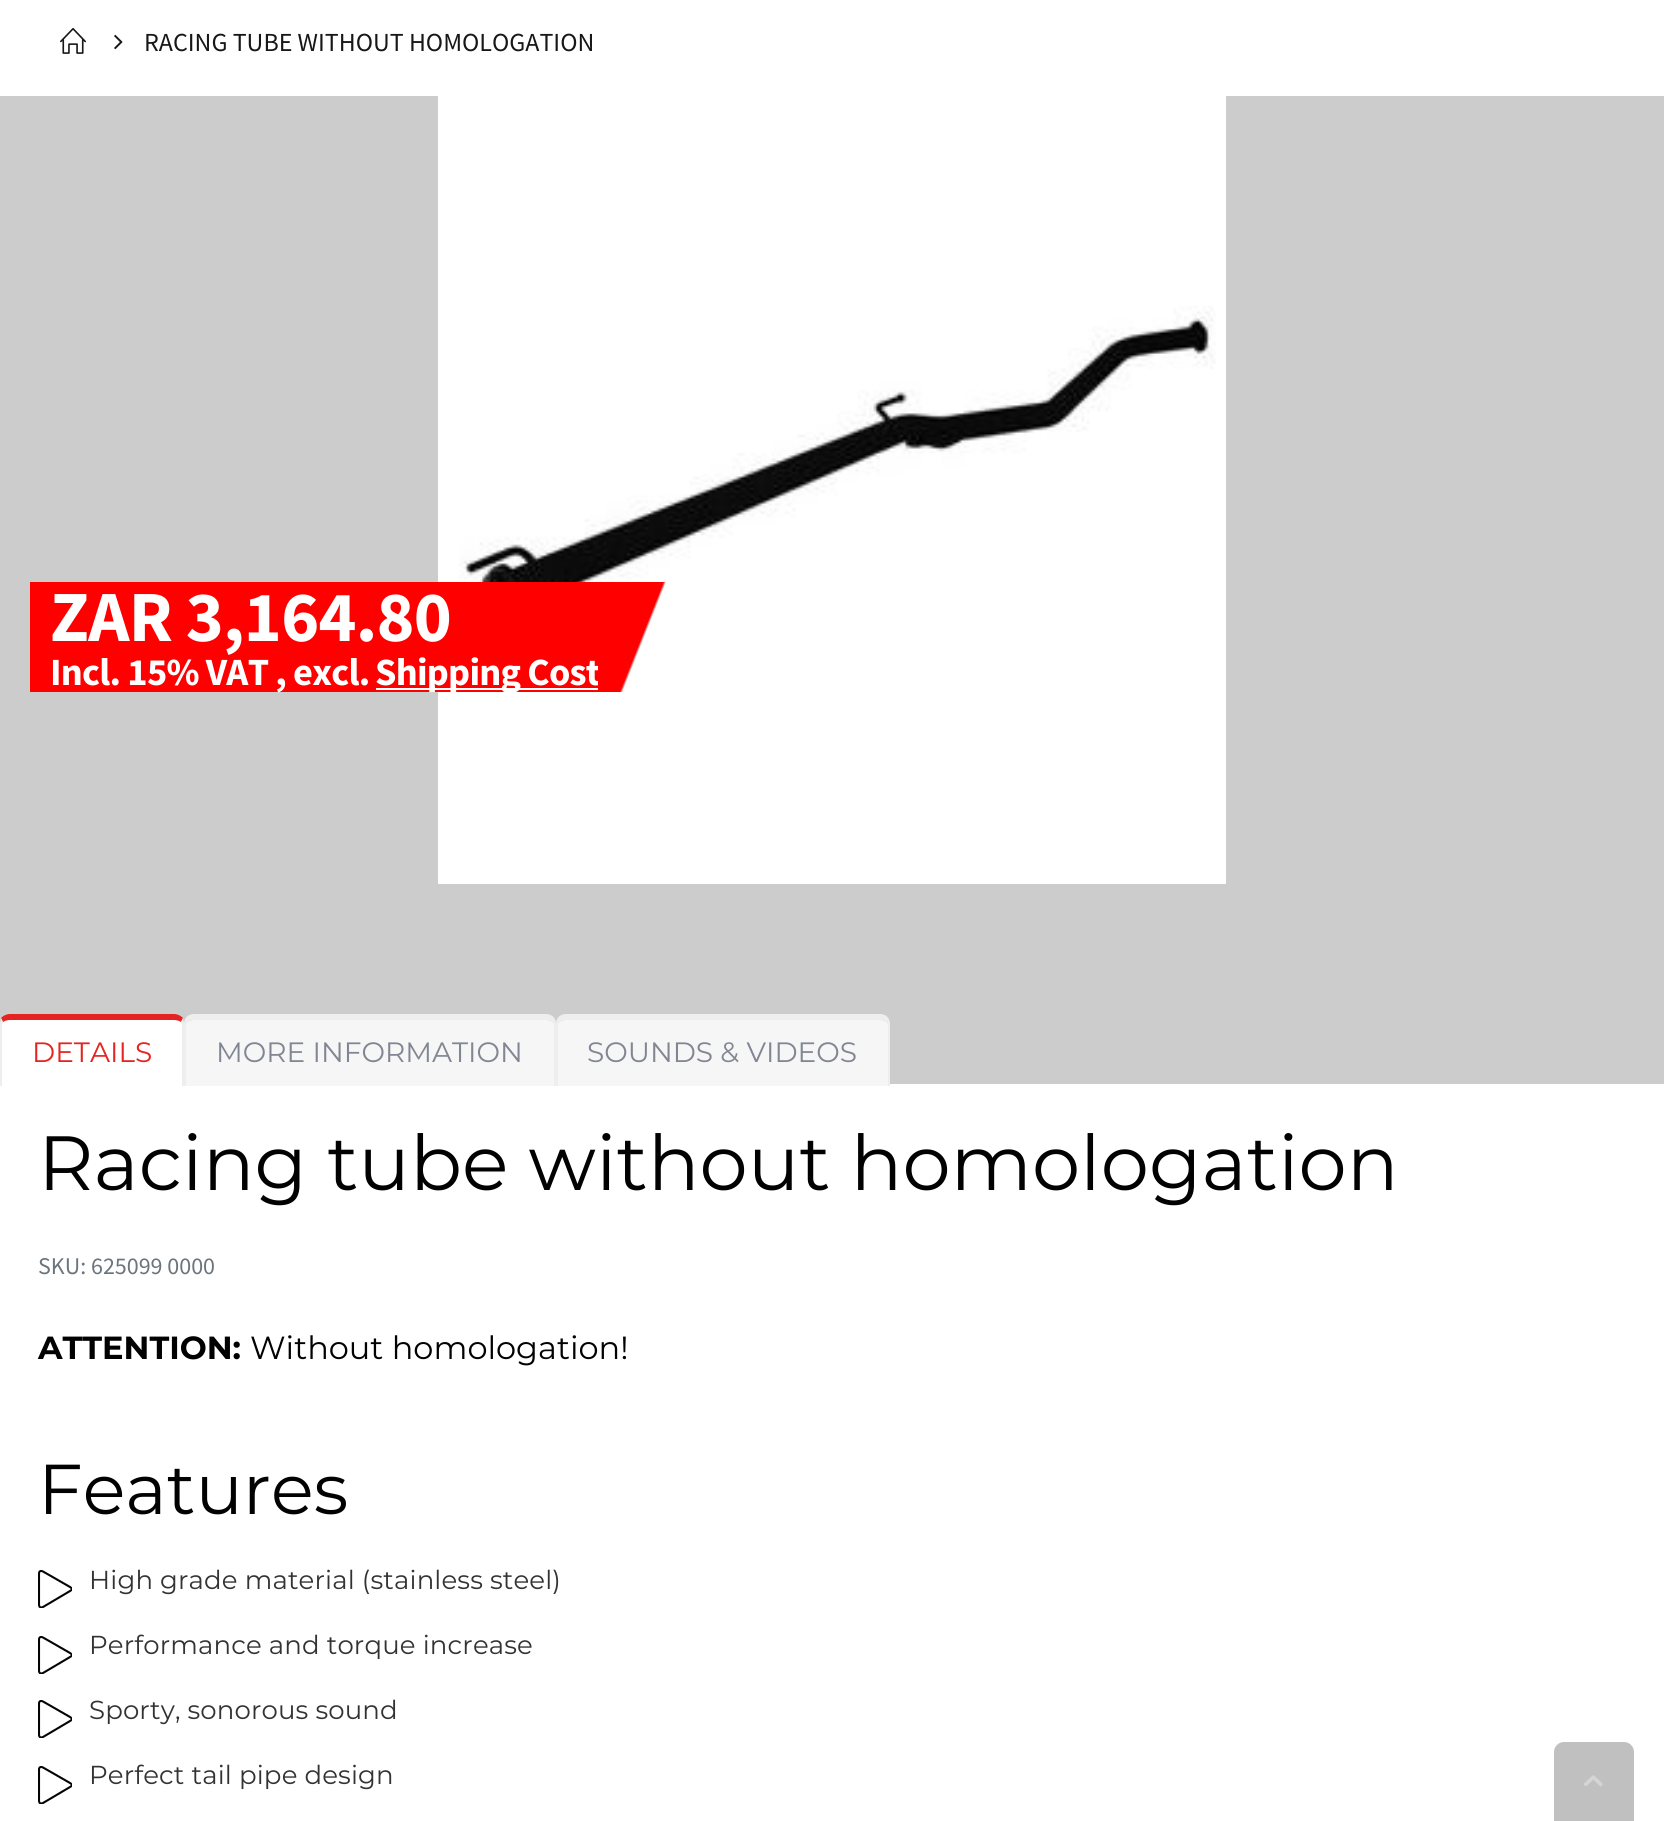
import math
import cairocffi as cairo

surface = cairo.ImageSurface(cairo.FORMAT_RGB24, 1664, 1821)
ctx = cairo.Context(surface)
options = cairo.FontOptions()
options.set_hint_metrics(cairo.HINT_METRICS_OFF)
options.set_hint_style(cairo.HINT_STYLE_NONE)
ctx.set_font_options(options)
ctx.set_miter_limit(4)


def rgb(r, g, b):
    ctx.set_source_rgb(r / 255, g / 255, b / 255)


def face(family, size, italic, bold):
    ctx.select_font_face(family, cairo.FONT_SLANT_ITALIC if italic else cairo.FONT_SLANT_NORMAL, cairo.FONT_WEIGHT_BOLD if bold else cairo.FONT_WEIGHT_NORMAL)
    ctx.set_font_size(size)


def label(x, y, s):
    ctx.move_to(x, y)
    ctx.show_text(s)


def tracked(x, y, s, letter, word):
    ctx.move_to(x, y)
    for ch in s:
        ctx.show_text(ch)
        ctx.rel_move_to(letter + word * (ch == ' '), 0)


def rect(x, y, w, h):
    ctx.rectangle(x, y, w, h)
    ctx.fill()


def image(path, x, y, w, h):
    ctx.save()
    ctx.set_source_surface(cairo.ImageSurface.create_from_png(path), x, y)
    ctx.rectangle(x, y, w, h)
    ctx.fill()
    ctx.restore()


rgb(204, 204, 204)
ctx.paint()
rgb(255, 255, 255)
rect(0, 0, 1664, 96)
image('image0.png', 60, 28, 26, 26)
image('image1.png', 114, 34, 9, 16)
face('Source Sans Pro', 26, 0, 0)
rgb(23, 23, 23)
label(144, 51, 'RACING TUBE WITHOUT HOMOLOGATION')
image('image2.png', 438, 96, 788, 788)
rgb(255, 0, 0)
rect(30, 582, 568, 110)
face('Source Sans Pro', 72, 0, 1)
rgb(255, 255, 255)
tracked(50, 641, 'ZAR 3,164.80', -0.75, 0)
rect(376, 688, 222, 2)
face('Source Sans Pro', 38.5, 0, 1)
tracked(375, 685, 'Shipping Cost', -0.75, 0)
gradient = cairo.LinearGradient(585, 614, 701, 660)
gradient.add_color_stop_rgba(0.49, 1, 0, 0, 1)
gradient.add_color_stop_rgba(0.51, 1, 0, 0, 0)
ctx.set_source(gradient)
rect(598, 582, 68, 110)
rgb(255, 255, 255)
tracked(50, 685, 'Incl. 15% VAT , excl.', -0.75, 0)
rect(0, 1084, 1664, 737)
ctx.new_path()
ctx.move_to(10, 1020)
ctx.line_to(174, 1020)
ctx.curve_to(178, 1020, 182, 1022, 182, 1024)
ctx.line_to(182, 1086)
ctx.line_to(2, 1086)
ctx.line_to(2, 1024)
ctx.curve_to(2, 1022, 6, 1020, 10, 1020)
ctx.close_path()
ctx.fill()
rgb(229, 36, 33)
ctx.new_path()
ctx.move_to(10, 1014)
ctx.curve_to(6, 1014, 3, 1016, 1, 1018)
ctx.line_to(3, 1022)
ctx.curve_to(4, 1021, 7, 1020, 10, 1020)
ctx.line_to(174, 1020)
ctx.curve_to(177, 1020, 180, 1021, 181, 1022)
ctx.line_to(183, 1018)
ctx.curve_to(181, 1016, 178, 1014, 174, 1014)
ctx.close_path()
ctx.fill()
rgb(238, 238, 238)
ctx.new_path()
ctx.move_to(182, 1086)
ctx.line_to(184, 1086)
ctx.line_to(184, 1024)
ctx.curve_to(184, 1022, 183, 1020, 183, 1018)
ctx.line_to(181, 1022)
ctx.line_to(182, 1024)
ctx.close_path()
ctx.fill()
ctx.new_path()
ctx.move_to(0, 1086)
ctx.line_to(2, 1086)
ctx.line_to(2, 1024)
ctx.line_to(3, 1022)
ctx.line_to(1, 1018)
ctx.curve_to(1, 1020, 0, 1022, 0, 1024)
ctx.close_path()
ctx.fill()
face('Montserrat', 28, 0, 0)
rgb(229, 36, 33)
label(32, 1062, 'DETAILS')
rgb(246, 246, 246)
ctx.new_path()
ctx.move_to(194, 1020)
ctx.line_to(546, 1020)
ctx.curve_to(550, 1020, 554, 1022, 554, 1024)
ctx.line_to(554, 1086)
ctx.line_to(186, 1086)
ctx.line_to(186, 1024)
ctx.curve_to(186, 1022, 190, 1020, 194, 1020)
ctx.close_path()
ctx.fill()
rgb(238, 238, 238)
ctx.set_fill_rule(cairo.FILL_RULE_EVEN_ODD)
ctx.new_path()
ctx.move_to(194, 1014)
ctx.line_to(546, 1014)
ctx.curve_to(552, 1014, 556, 1018, 556, 1024)
ctx.line_to(556, 1086)
ctx.line_to(184, 1086)
ctx.line_to(184, 1024)
ctx.curve_to(184, 1018, 188, 1014, 194, 1014)
ctx.close_path()
ctx.move_to(194, 1020)
ctx.line_to(546, 1020)
ctx.curve_to(550, 1020, 554, 1022, 554, 1024)
ctx.line_to(554, 1086)
ctx.line_to(186, 1086)
ctx.line_to(186, 1024)
ctx.curve_to(186, 1022, 190, 1020, 194, 1020)
ctx.close_path()
ctx.fill()
rgb(129, 134, 146)
label(216, 1062, 'MORE INFORMATION')
rgb(246, 246, 246)
ctx.set_fill_rule(cairo.FILL_RULE_WINDING)
ctx.new_path()
ctx.move_to(566, 1020)
ctx.line_to(880, 1020)
ctx.curve_to(884, 1020, 888, 1022, 888, 1024)
ctx.line_to(888, 1086)
ctx.line_to(558, 1086)
ctx.line_to(558, 1024)
ctx.curve_to(558, 1022, 562, 1020, 566, 1020)
ctx.close_path()
ctx.fill()
rgb(238, 238, 238)
ctx.set_fill_rule(cairo.FILL_RULE_EVEN_ODD)
ctx.new_path()
ctx.move_to(566, 1014)
ctx.line_to(880, 1014)
ctx.curve_to(886, 1014, 890, 1018, 890, 1024)
ctx.line_to(890, 1086)
ctx.line_to(556, 1086)
ctx.line_to(556, 1024)
ctx.curve_to(556, 1018, 560, 1014, 566, 1014)
ctx.close_path()
ctx.move_to(566, 1020)
ctx.line_to(880, 1020)
ctx.curve_to(884, 1020, 888, 1022, 888, 1024)
ctx.line_to(888, 1086)
ctx.line_to(558, 1086)
ctx.line_to(558, 1024)
ctx.curve_to(558, 1022, 562, 1020, 566, 1020)
ctx.close_path()
ctx.fill()
rgb(129, 134, 146)
label(587, 1062, 'SOUNDS & VIDEOS')
face('Montserrat', 76.75, 0, 0)
rgb(1, 1, 2)
label(38, 1190, 'Racing tube without homologation')
face('Source Sans Pro', 24, 0, 0)
rgb(108, 117, 125)
label(38, 1274, 'SKU: 625099 0000')
face('Montserrat', 32, 0, 1)
rgb(1, 1, 2)
label(38, 1359, 'ATTENTION:')
face('Montserrat', 32, 0, 0)
label(250, 1359, 'Without homologation!')
face('Montserrat', 70.5, 0, 0)
label(38, 1514, 'Features')
ctx.save()
ctx.set_fill_rule(cairo.FILL_RULE_WINDING)
ctx.rectangle(38, 1570, 34, 38)
ctx.clip()
ctx.new_path()
ctx.move_to(43, 1607)
ctx.curve_to(43, 1607, 39, 1609, 39, 1604.5)
ctx.line_to(39, 1573.5)
ctx.curve_to(39, 1573.5, 39, 1569.5, 43, 1571.5)
ctx.line_to(70, 1587)
ctx.curve_to(70, 1587, 74, 1589, 70, 1591)
ctx.close_path()
rgb(4, 4, 6)
ctx.set_line_width(2.1)
ctx.stroke()
ctx.restore()
face('Montserrat', 26, 0, 0)
rgb(51, 51, 51)
tracked(89, 1589, 'High grade material (stainless steel)', 0.15, 0)
ctx.save()
ctx.set_fill_rule(cairo.FILL_RULE_WINDING)
ctx.rectangle(38, 1636, 34, 38)
ctx.clip()
ctx.new_path()
ctx.move_to(43, 1673)
ctx.curve_to(43, 1673, 39, 1675, 39, 1670.5)
ctx.line_to(39, 1639.5)
ctx.curve_to(39, 1639.5, 39, 1635.5, 43, 1637.5)
ctx.line_to(70, 1653)
ctx.curve_to(70, 1653, 74, 1655, 70, 1657)
ctx.close_path()
rgb(4, 4, 6)
ctx.set_line_width(2.1)
ctx.stroke()
ctx.restore()
tracked(89, 1654, 'Performance and torque increase', 0.15, 0)
ctx.save()
ctx.set_fill_rule(cairo.FILL_RULE_WINDING)
ctx.rectangle(38, 1700, 34, 38)
ctx.clip()
ctx.new_path()
ctx.move_to(43, 1737)
ctx.curve_to(43, 1737, 39, 1739, 39, 1734.5)
ctx.line_to(39, 1703.5)
ctx.curve_to(39, 1703.5, 39, 1699.5, 43, 1701.5)
ctx.line_to(70, 1717)
ctx.curve_to(70, 1717, 74, 1719, 70, 1721)
ctx.close_path()
rgb(4, 4, 6)
ctx.set_line_width(2.1)
ctx.stroke()
ctx.restore()
tracked(89, 1719, 'Sporty, sonorous sound', 0.15, 0)
ctx.save()
ctx.set_fill_rule(cairo.FILL_RULE_WINDING)
ctx.rectangle(38, 1766, 34, 38)
ctx.clip()
ctx.new_path()
ctx.move_to(43, 1803)
ctx.curve_to(43, 1803, 39, 1805, 39, 1800.5)
ctx.line_to(39, 1769.5)
ctx.curve_to(39, 1769.5, 39, 1765.5, 43, 1767.5)
ctx.line_to(70, 1783)
ctx.curve_to(70, 1783, 74, 1785, 70, 1787)
ctx.close_path()
rgb(4, 4, 6)
ctx.set_line_width(2.1)
ctx.stroke()
ctx.restore()
tracked(89, 1784, 'Perfect tail pipe design', 0.15, 0)
rgb(192, 192, 192)
ctx.new_path()
ctx.move_to(1564, 1742)
ctx.line_to(1624, 1742)
ctx.curve_to(1629.5, 1742, 1634, 1746.5, 1634, 1752)
ctx.line_to(1634, 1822)
ctx.line_to(1554, 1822)
ctx.line_to(1554, 1752)
ctx.curve_to(1554, 1746.5, 1558.5, 1742, 1564, 1742)
ctx.close_path()
ctx.fill()
image('image3.png', 1584, 1775, 19, 12)
surface.write_to_png('render.png')
